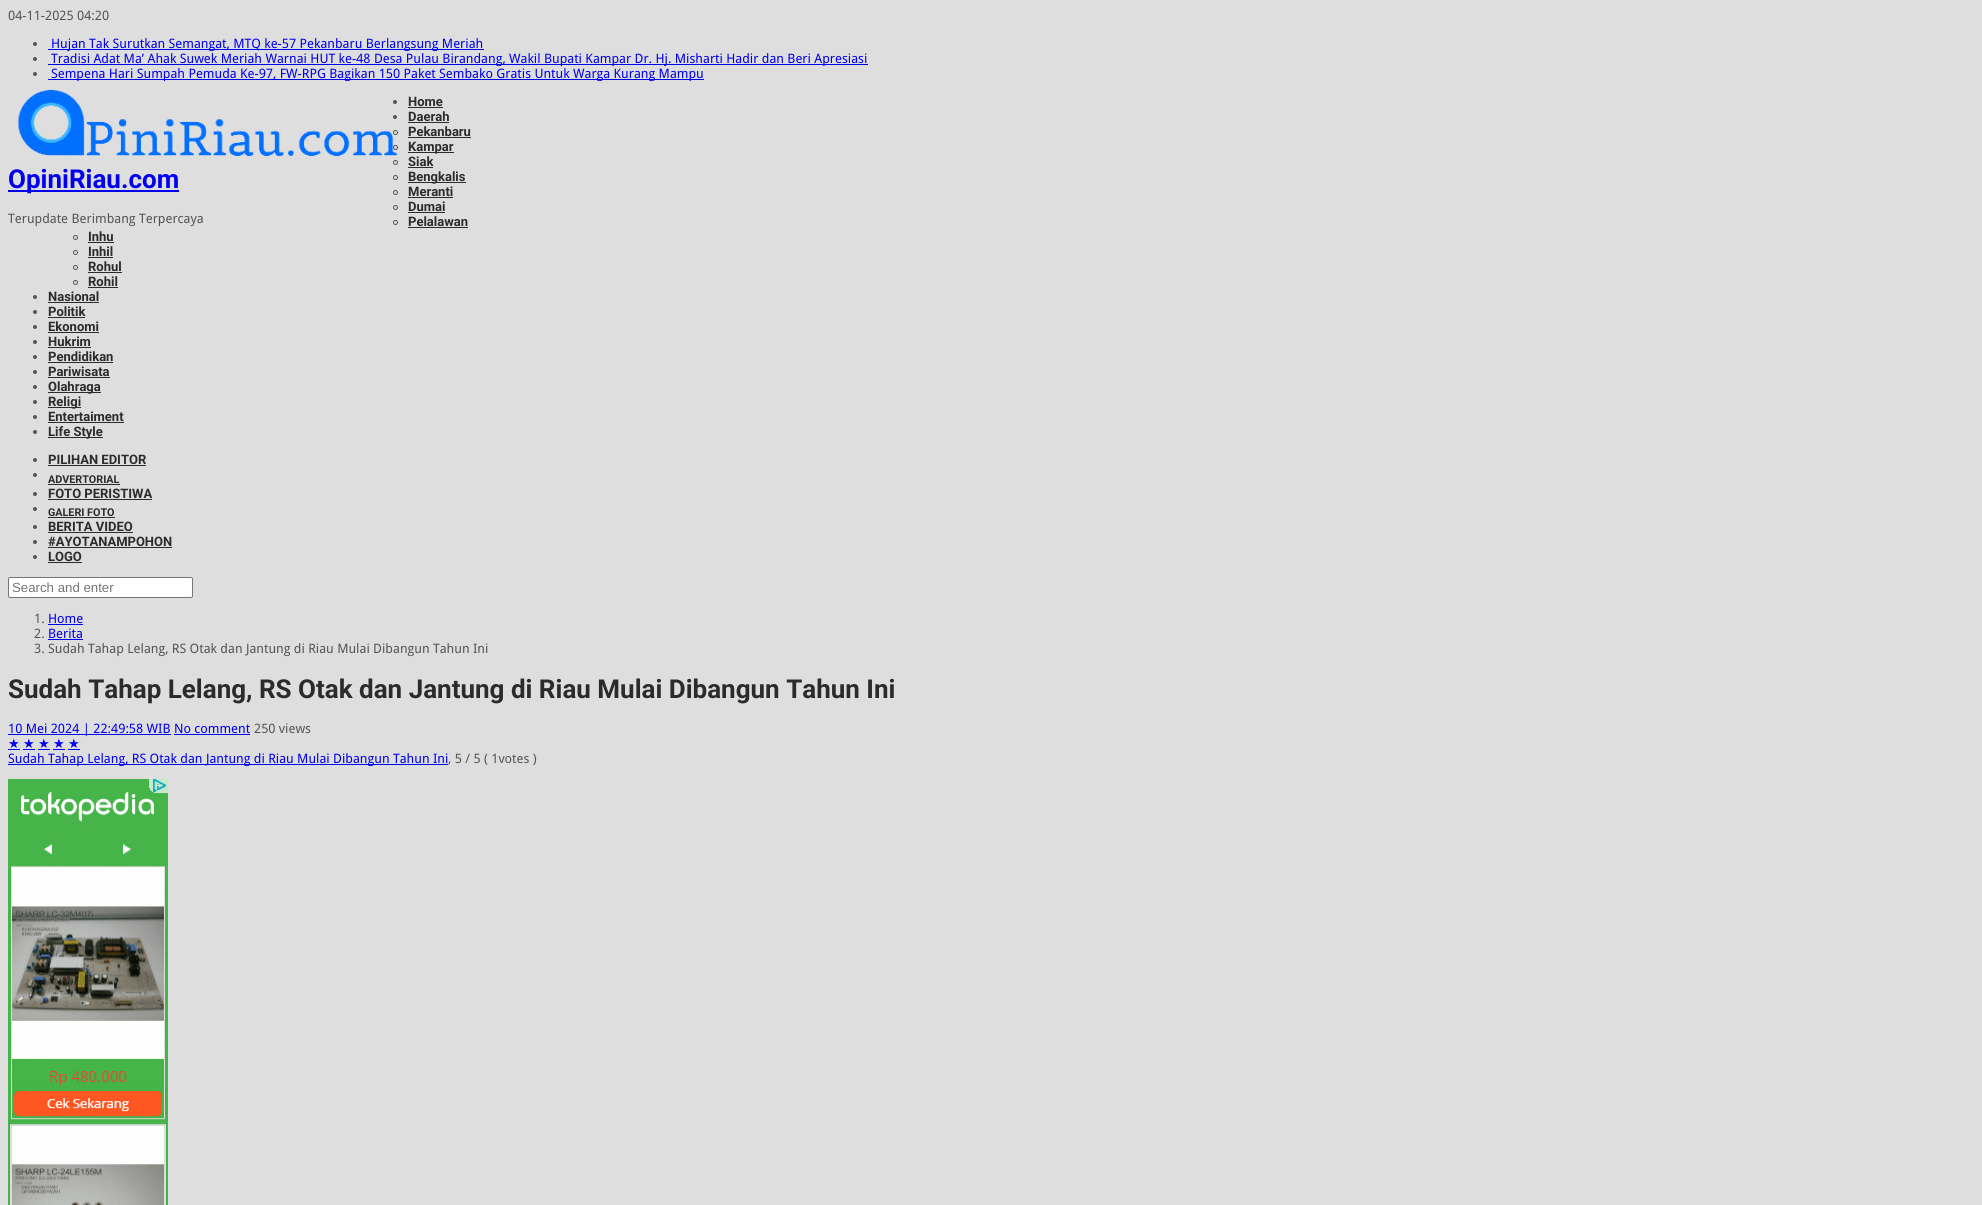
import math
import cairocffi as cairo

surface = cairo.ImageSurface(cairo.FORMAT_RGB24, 1982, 1205)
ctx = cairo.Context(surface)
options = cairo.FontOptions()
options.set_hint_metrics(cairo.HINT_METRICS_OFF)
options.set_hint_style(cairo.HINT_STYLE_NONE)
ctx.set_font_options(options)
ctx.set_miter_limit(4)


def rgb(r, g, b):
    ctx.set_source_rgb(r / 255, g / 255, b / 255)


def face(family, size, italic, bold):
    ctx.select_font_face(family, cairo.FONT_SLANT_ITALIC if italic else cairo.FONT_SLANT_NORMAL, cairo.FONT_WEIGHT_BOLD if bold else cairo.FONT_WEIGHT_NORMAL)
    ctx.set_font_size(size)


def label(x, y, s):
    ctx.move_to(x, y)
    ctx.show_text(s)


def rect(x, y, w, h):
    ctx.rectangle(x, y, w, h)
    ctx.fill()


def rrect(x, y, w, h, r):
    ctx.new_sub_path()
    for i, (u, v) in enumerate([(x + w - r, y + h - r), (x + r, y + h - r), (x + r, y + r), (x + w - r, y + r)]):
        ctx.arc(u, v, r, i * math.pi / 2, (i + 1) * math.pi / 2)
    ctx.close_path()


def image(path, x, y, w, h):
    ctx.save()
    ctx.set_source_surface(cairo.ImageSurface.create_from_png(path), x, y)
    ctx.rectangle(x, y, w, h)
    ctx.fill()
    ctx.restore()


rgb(222, 222, 222)
ctx.paint()
face('Droid Sans', 13, 0, 0)
rgb(85, 85, 85)
label(8, 20, '04-11-2025 04:20')
ctx.new_path()
ctx.arc(35, 44, 2, 0, 2 * math.pi)
ctx.fill()
rgb(0, 0, 238)
rect(48, 49, 436, 1)
label(51, 48, 'Hujan Tak Surutkan Semangat, MTQ ke-57 Pekanbaru Berlangsung Meriah')
rgb(85, 85, 85)
ctx.new_path()
ctx.arc(35, 59, 2, 0, 2 * math.pi)
ctx.fill()
rgb(0, 0, 238)
rect(48, 64, 820, 1)
label(51, 63, 'Tradisi Adat Ma’ Ahak Suwek Meriah Warnai HUT ke-48 Desa Pulau Birandang, Wakil Bupati Kampar Dr. Hj. Misharti Hadir dan Beri Apresiasi')
rgb(85, 85, 85)
ctx.new_path()
ctx.arc(35, 74, 2, 0, 2 * math.pi)
ctx.fill()
rgb(0, 0, 238)
rect(48, 79, 656, 1)
label(51, 78, 'Sempena Hari Sumpah Pemuda Ke-97, FW-RPG Bagikan 150 Paket Sembako Gratis Untuk Warga Kurang Mampu')
image('image0.png', 17, 89, 381, 68)
rgb(85, 85, 85)
ctx.arc(395, 102, 2, 0, 2 * math.pi)
ctx.fill()
face('Roboto', 13, 0, 1)
rgb(43, 43, 43)
label(408, 106, 'Home')
rect(408, 107, 35, 1)
rgb(85, 85, 85)
ctx.new_path()
ctx.arc(395, 117, 2, 0, 2 * math.pi)
ctx.fill()
rgb(43, 43, 43)
label(408, 121, 'Daerah')
rect(408, 122, 41, 1)
ctx.new_path()
ctx.arc(395.5, 132.5, 2, 0, 2 * math.pi)
rgb(85, 85, 85)
ctx.set_line_width(1)
ctx.stroke()
rgb(43, 43, 43)
label(408, 136, 'Pekanbaru')
rect(408, 137, 63, 1)
ctx.new_path()
ctx.arc(395.5, 147.5, 2, 0, 2 * math.pi)
rgb(85, 85, 85)
ctx.stroke()
rgb(43, 43, 43)
rect(408, 152, 46, 1)
label(408, 151, 'Kampar')
ctx.new_path()
ctx.arc(395.5, 162.5, 2, 0, 2 * math.pi)
rgb(85, 85, 85)
ctx.stroke()
rgb(43, 43, 43)
label(408, 166, 'Siak')
rect(408, 167, 25, 1)
ctx.new_path()
ctx.arc(395.5, 177.5, 2, 0, 2 * math.pi)
rgb(85, 85, 85)
ctx.stroke()
rgb(43, 43, 43)
rect(408, 182, 58, 1)
label(408, 181, 'Bengkalis')
ctx.new_path()
ctx.arc(395.5, 192.5, 2, 0, 2 * math.pi)
rgb(85, 85, 85)
ctx.stroke()
rgb(43, 43, 43)
label(408, 196, 'Meranti')
rect(408, 197, 45, 1)
ctx.new_path()
ctx.arc(395.5, 207.5, 2, 0, 2 * math.pi)
rgb(85, 85, 85)
ctx.stroke()
rgb(43, 43, 43)
label(408, 211, 'Dumai')
rect(408, 212, 37, 1)
ctx.new_path()
ctx.arc(395.5, 222.5, 2, 0, 2 * math.pi)
rgb(85, 85, 85)
ctx.stroke()
rgb(43, 43, 43)
label(408, 226, 'Pelalawan')
rect(408, 227, 60, 1)
ctx.new_path()
ctx.arc(75.5, 237.5, 2, 0, 2 * math.pi)
rgb(85, 85, 85)
ctx.stroke()
rgb(43, 43, 43)
label(88, 241, 'Inhu')
rect(88, 242, 26, 1)
ctx.new_path()
ctx.arc(75.5, 252.5, 2, 0, 2 * math.pi)
rgb(85, 85, 85)
ctx.stroke()
rgb(43, 43, 43)
label(88, 256, 'Inhil')
rect(88, 257, 25, 1)
ctx.new_path()
ctx.arc(75.5, 267.5, 2, 0, 2 * math.pi)
rgb(85, 85, 85)
ctx.stroke()
rgb(43, 43, 43)
label(88, 271, 'Rohul')
rect(88, 272, 34, 1)
ctx.new_path()
ctx.arc(75.5, 282.5, 2, 0, 2 * math.pi)
rgb(85, 85, 85)
ctx.stroke()
rgb(43, 43, 43)
label(88, 286, 'Rohil')
rect(88, 287, 30, 1)
rgb(85, 85, 85)
ctx.new_path()
ctx.arc(35, 297, 2, 0, 2 * math.pi)
ctx.fill()
rgb(43, 43, 43)
label(48, 301, 'Nasional')
rect(48, 302, 51, 1)
rgb(85, 85, 85)
ctx.new_path()
ctx.arc(35, 312, 2, 0, 2 * math.pi)
ctx.fill()
rgb(43, 43, 43)
label(48, 316, 'Politik')
rect(48, 317, 37, 1)
rgb(85, 85, 85)
ctx.new_path()
ctx.arc(35, 327, 2, 0, 2 * math.pi)
ctx.fill()
rgb(43, 43, 43)
label(48, 331, 'Ekonomi')
rect(48, 332, 51, 1)
rgb(85, 85, 85)
ctx.new_path()
ctx.arc(35, 342, 2, 0, 2 * math.pi)
ctx.fill()
rgb(43, 43, 43)
label(48, 346, 'Hukrim')
rect(48, 347, 43, 1)
rgb(85, 85, 85)
ctx.new_path()
ctx.arc(35, 357, 2, 0, 2 * math.pi)
ctx.fill()
rgb(43, 43, 43)
label(48, 361, 'Pendidikan')
rect(48, 362, 65, 1)
rgb(85, 85, 85)
ctx.new_path()
ctx.arc(35, 372, 2, 0, 2 * math.pi)
ctx.fill()
rgb(43, 43, 43)
label(48, 376, 'Pariwisata')
rect(48, 377, 62, 1)
rgb(85, 85, 85)
ctx.new_path()
ctx.arc(35, 387, 2, 0, 2 * math.pi)
ctx.fill()
rgb(43, 43, 43)
rect(48, 392, 53, 1)
label(48, 391, 'Olahraga')
rgb(85, 85, 85)
ctx.new_path()
ctx.arc(35, 402, 2, 0, 2 * math.pi)
ctx.fill()
rgb(43, 43, 43)
rect(48, 407, 33, 1)
label(48, 406, 'Religi')
rgb(85, 85, 85)
ctx.new_path()
ctx.arc(35, 417, 2, 0, 2 * math.pi)
ctx.fill()
rgb(43, 43, 43)
label(48, 421, 'Entertaiment')
rect(48, 422, 76, 1)
rgb(85, 85, 85)
ctx.new_path()
ctx.arc(35, 432, 2, 0, 2 * math.pi)
ctx.fill()
rgb(43, 43, 43)
rect(48, 437, 55, 1)
label(48, 436, 'Life Style')
rgb(85, 85, 85)
ctx.new_path()
ctx.arc(35, 460, 2, 0, 2 * math.pi)
ctx.fill()
rgb(43, 43, 43)
label(48, 464, 'PILIHAN EDITOR')
rect(48, 465, 98, 1)
rgb(85, 85, 85)
ctx.new_path()
ctx.arc(35, 475, 2, 0, 2 * math.pi)
ctx.fill()
face('Roboto', 10.75, 0, 1)
rgb(43, 43, 43)
label(48, 483, 'ADVERTORIAL')
rect(48, 484, 72, 1)
rgb(85, 85, 85)
ctx.new_path()
ctx.arc(35, 494, 2, 0, 2 * math.pi)
ctx.fill()
face('Roboto', 13, 0, 1)
rgb(43, 43, 43)
label(48, 498, 'FOTO PERISTIWA')
rect(48, 499, 104, 1)
rgb(85, 85, 85)
ctx.new_path()
ctx.arc(35, 509, 2, 0, 2 * math.pi)
ctx.fill()
face('Roboto', 10.75, 0, 1)
rgb(43, 43, 43)
label(48, 516, 'GALERI FOTO')
rect(48, 517, 67, 1)
rgb(85, 85, 85)
ctx.new_path()
ctx.arc(35, 527, 2, 0, 2 * math.pi)
ctx.fill()
face('Roboto', 13, 0, 1)
rgb(43, 43, 43)
label(48, 531, 'BERITA VIDEO')
rect(48, 532, 85, 1)
rgb(85, 85, 85)
ctx.new_path()
ctx.arc(35, 542, 2, 0, 2 * math.pi)
ctx.fill()
rgb(43, 43, 43)
label(48, 546, '#AYOTANAMPOHON')
rect(48, 547, 124, 1)
rgb(85, 85, 85)
ctx.new_path()
ctx.arc(35, 557, 2, 0, 2 * math.pi)
ctx.fill()
rgb(43, 43, 43)
label(48, 561, 'LOGO')
rect(48, 562, 34, 1)
rgb(255, 255, 255)
rrect(8.5, 577.5, 184, 20, 1.5)
ctx.fill_preserve()
rgb(118, 118, 118)
ctx.stroke()
face('Liberation Sans', 13.25, 0, 0)
rgb(117, 117, 117)
label(12, 592, 'Search and enter')
rgb(0, 0, 238)
rect(8, 190, 171, 2)
face('Roboto', 26, 0, 1)
label(8, 188, 'OpiniRiau.com')
face('Droid Sans', 13, 0, 0)
rgb(85, 85, 85)
label(8, 223, 'Terupdate Berimbang Terpercaya')
label(34, 623, '1.')
rgb(0, 0, 238)
label(48, 623, 'Home')
rect(48, 624, 35, 1)
rgb(85, 85, 85)
label(34, 638, '2.')
rgb(0, 0, 238)
label(48, 638, 'Berita')
rect(48, 639, 35, 1)
rgb(85, 85, 85)
label(34, 653, '3. Sudah Tahap Lelang, RS Otak dan Jantung di Riau Mulai Dibangun Tahun Ini')
face('Roboto', 26, 0, 1)
rgb(43, 43, 43)
label(8, 698, 'Sudah Tahap Lelang, RS Otak dan Jantung di Riau Mulai Dibangun Tahun Ini')
rgb(0, 0, 238)
rect(8, 734, 163, 1)
face('Droid Sans', 13, 0, 0)
label(8, 733, '10 Mei 2024 | 22:49:58 WIB No comment')
rgb(85, 85, 85)
label(254, 733, '250 views')
rgb(0, 0, 238)
rect(174, 734, 76, 1)
face('DejaVu Sans', 13, 0, 0)
label(8, 748, '★')
rect(8, 749, 12, 1)
label(23, 748, '★')
rect(23, 749, 12, 1)
label(38, 748, '★')
rect(38, 749, 12, 1)
label(53, 748, '★')
rect(53, 749, 12, 1)
label(68, 748, '★')
rect(68, 749, 12, 1)
rect(8, 764, 440, 1)
face('Droid Sans', 13, 0, 0)
label(8, 763, 'Sudah Tahap Lelang, RS Otak dan Jantung di Riau Mulai Dibangun Tahun Ini')
rgb(85, 85, 85)
label(448, 763, ', 5 / 5 ( 1votes )')
image('image1.png', 8, 779, 160, 426)
surface.write_to_png('render.png')
